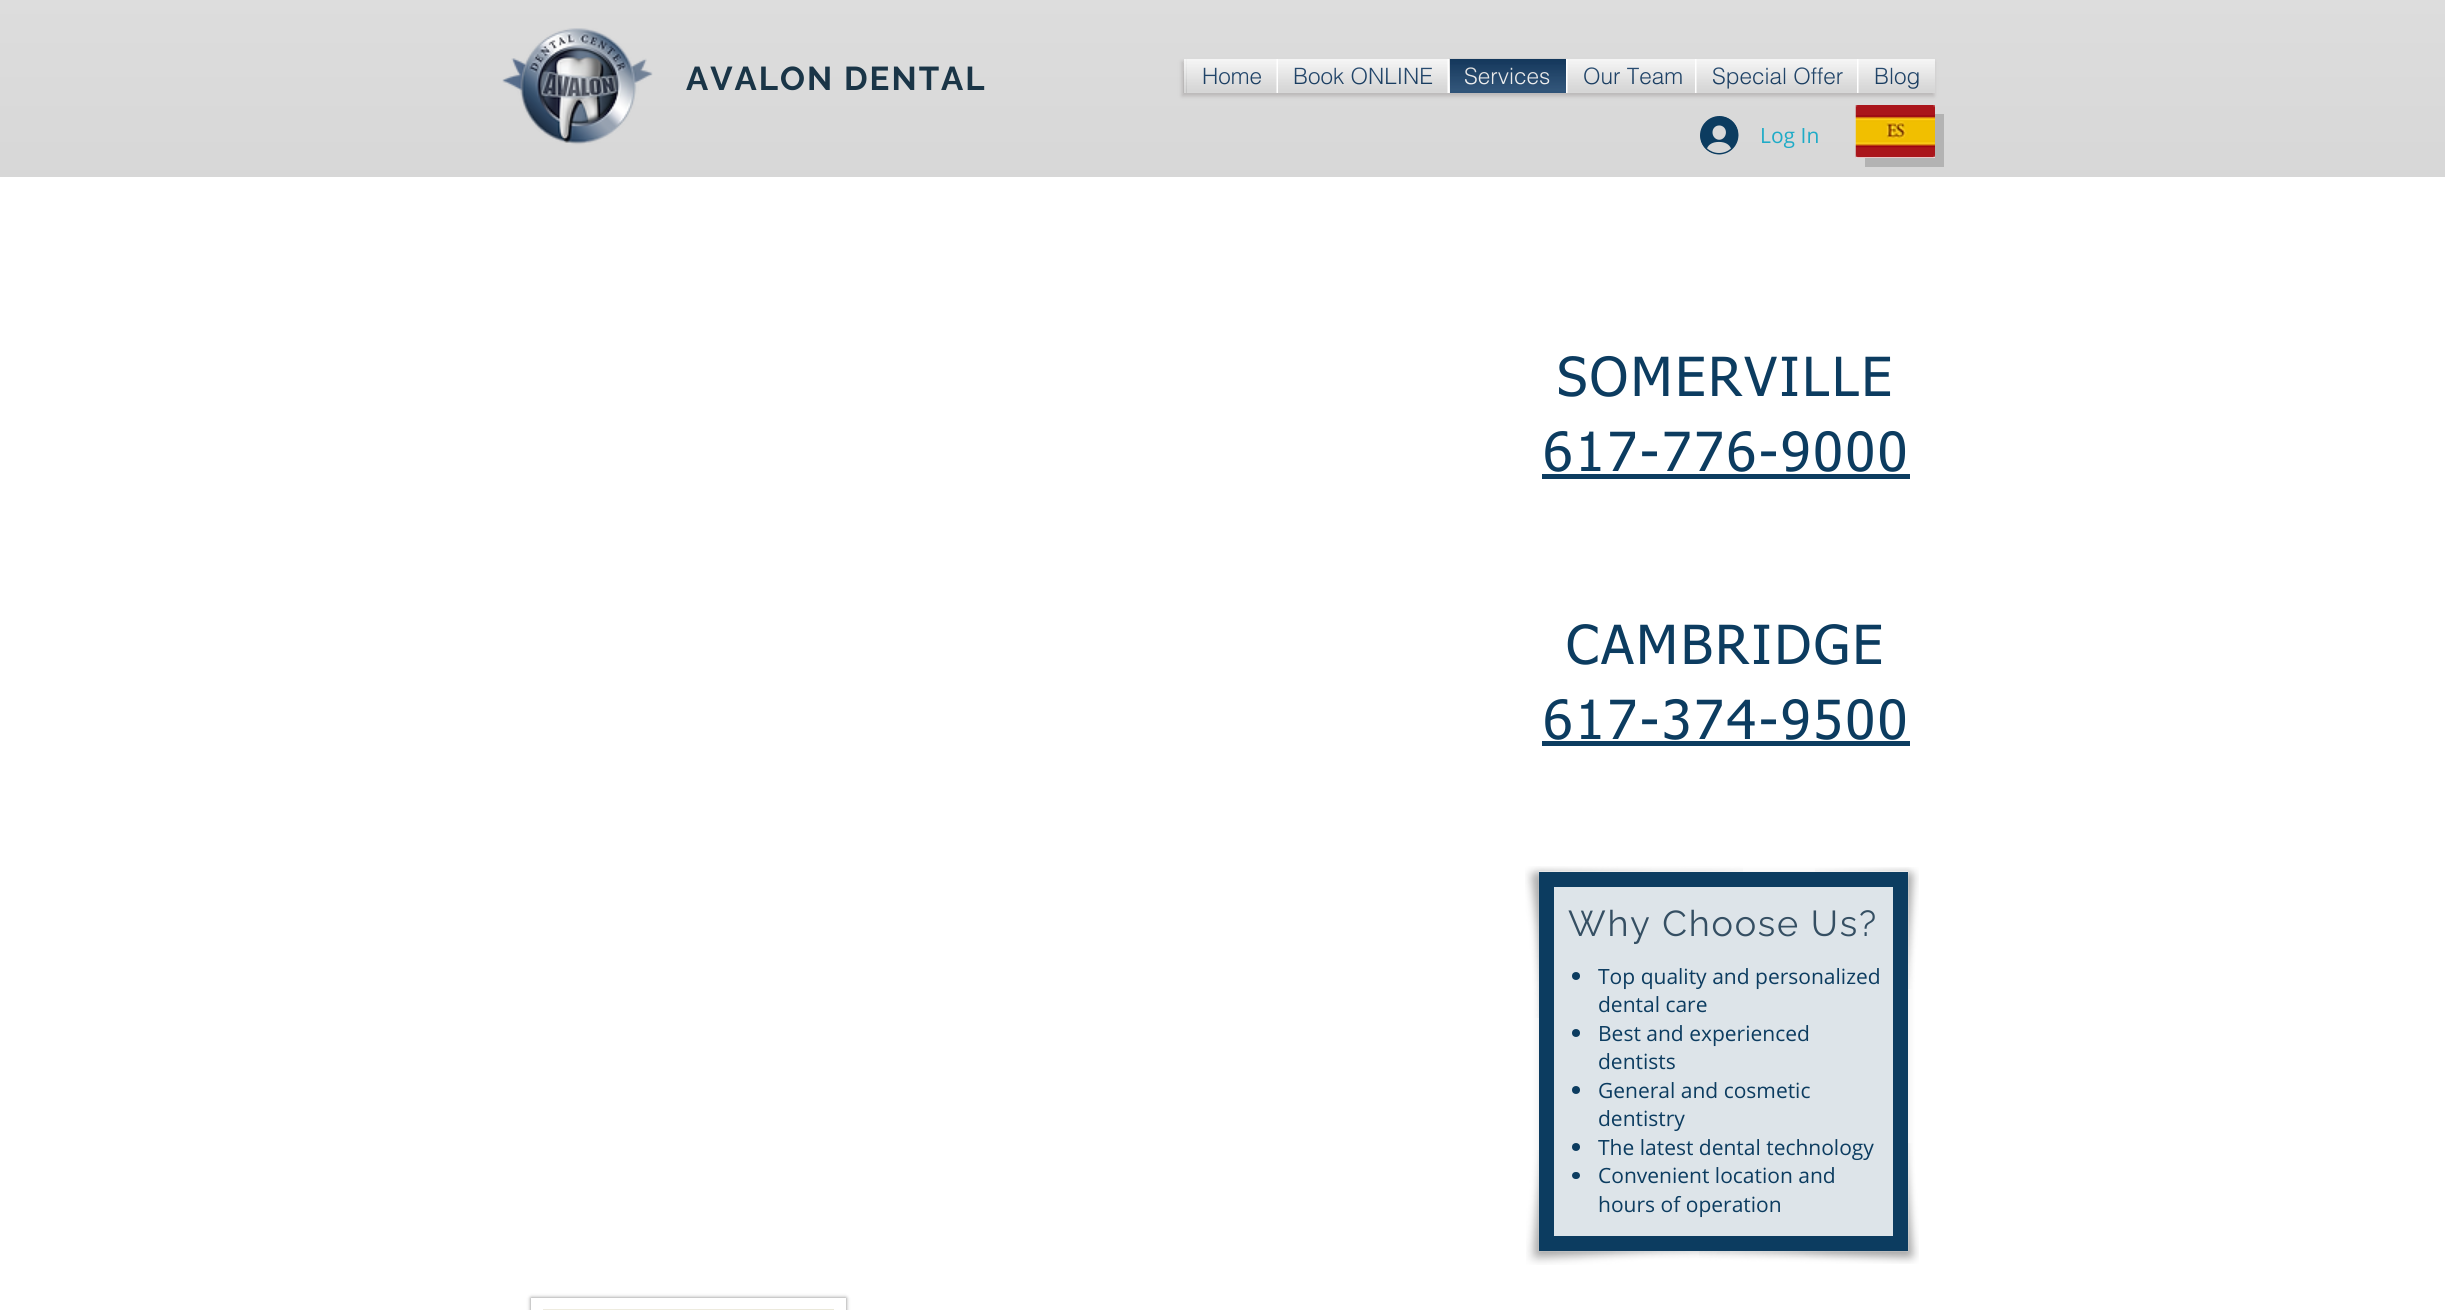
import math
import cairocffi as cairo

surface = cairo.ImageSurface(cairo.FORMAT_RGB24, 2445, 1310)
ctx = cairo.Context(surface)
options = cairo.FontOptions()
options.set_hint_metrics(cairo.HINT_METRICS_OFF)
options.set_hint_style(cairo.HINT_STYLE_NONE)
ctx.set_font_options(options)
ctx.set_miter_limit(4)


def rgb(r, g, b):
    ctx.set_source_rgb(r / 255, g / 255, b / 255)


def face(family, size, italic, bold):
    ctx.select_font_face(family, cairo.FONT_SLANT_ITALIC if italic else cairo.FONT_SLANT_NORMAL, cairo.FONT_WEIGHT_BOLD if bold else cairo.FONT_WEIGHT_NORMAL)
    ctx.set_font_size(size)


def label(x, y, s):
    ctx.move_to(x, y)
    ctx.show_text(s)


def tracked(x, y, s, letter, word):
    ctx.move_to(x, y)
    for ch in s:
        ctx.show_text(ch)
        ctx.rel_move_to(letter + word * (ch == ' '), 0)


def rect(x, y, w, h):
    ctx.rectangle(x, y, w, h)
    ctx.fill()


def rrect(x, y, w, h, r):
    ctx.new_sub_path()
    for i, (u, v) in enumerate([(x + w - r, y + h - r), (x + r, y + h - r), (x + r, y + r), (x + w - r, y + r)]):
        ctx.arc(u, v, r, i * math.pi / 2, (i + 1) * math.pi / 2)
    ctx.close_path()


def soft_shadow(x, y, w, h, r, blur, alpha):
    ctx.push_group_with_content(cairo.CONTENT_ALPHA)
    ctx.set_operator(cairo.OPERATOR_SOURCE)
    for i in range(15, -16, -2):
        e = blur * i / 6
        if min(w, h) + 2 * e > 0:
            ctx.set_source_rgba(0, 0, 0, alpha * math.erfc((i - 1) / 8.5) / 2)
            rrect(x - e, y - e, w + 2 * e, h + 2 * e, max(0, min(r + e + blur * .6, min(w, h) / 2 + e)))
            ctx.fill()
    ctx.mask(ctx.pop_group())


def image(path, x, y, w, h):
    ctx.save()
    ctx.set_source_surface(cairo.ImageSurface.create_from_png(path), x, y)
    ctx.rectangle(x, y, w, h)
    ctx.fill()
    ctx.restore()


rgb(255, 255, 255)
ctx.paint()
rgb(209, 209, 209)
rect(0, 0, 2445, 177)
image('image0.png', 0, 0, 2445, 177)
image('image1.png', 502, 28, 151, 117)
face('Raleway', 33, 0, 1)
rgb(26, 53, 71)
tracked(686, 90, 'AVALON DENTAL', 2, 0)
rgb(162, 158, 158)
soft_shadow(1182, 62, 752, 34, 0, 2, 0.6)
rgb(255, 255, 255)
rect(1184, 59, 266, 34)
ctx.set_source_rgba(1, 1, 1, 0.09)
rect(1183, 62, 1, 9)
image('image2.png', 1183, 59, 4, 34)
face('helvetica Light', 22.5, 0, 0)
rgb(0, 46, 93)
label(1202, 84, 'Home')
image('image3.png', 1203, 67, 58, 18)
image('image4.png', 1186, 59, 91, 34)
label(1293, 84, 'Book ONLINE')
image('image5.png', 1294, 67, 138, 18)
image('image6.png', 1278, 59, 170, 34)
rect(1450, 59, 116, 34)
rgb(255, 255, 255)
label(1464, 84, 'Services')
image('image7.png', 1449, 58, 117, 35)
image('image8.png', 1449, 59, 117, 34)
rect(1566, 59, 369, 34)
rgb(0, 46, 93)
label(1583, 84, 'Our Team')
image('image9.png', 1583, 67, 98, 18)
image('image10.png', 1567, 59, 128, 34)
label(1712, 84, 'Special Offer')
image('image11.png', 1712, 67, 131, 22)
image('image12.png', 1696, 59, 161, 34)
label(1874, 84, 'Blog')
image('image13.png', 1875, 67, 43, 22)
image('image14.png', 1858, 59, 77, 34)
image('image15.png', 1700, 116, 39, 39)
face('Open Sans', 21, 0, 0)
rgb(30, 171, 199)
label(1760, 143, 'Log In')
rgb(179, 179, 179)
ctx.new_path()
ctx.move_to(1865, 158)
ctx.line_to(1865, 167)
ctx.line_to(1944, 167)
ctx.line_to(1944, 114)
ctx.line_to(1935, 114)
ctx.line_to(1935, 158)
ctx.close_path()
ctx.fill()
rgb(255, 255, 255)
rect(1856, 105, 79, 53)
image('image16.png', 1855, 105, 80, 53)
face('tahoma', 54, 0, 0)
rgb(12, 60, 96)
tracked(1557, 396, 'SOMERVILLE', 2.75, 0)
tracked(1543, 471, '617-776-9000', 2.75, 0)
rect(1542, 474, 368, 5)
tracked(1566, 664, 'CAMBRIDGE', 2.75, 0)
tracked(1543, 739, '617-374-9500', 2.75, 0)
rect(1542, 741, 368, 5)
image('image17.png', 1525, 866, 218, 152)
image('image18.png', 1815, 867, 104, 122)
image('image19.png', 1526, 1150, 204, 115)
image('image20.png', 1699, 1143, 220, 121)
ctx.save()
ctx.set_fill_rule(cairo.FILL_RULE_EVEN_ODD)
ctx.new_path()
ctx.move_to(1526, 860)
ctx.line_to(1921, 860)
ctx.line_to(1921, 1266)
ctx.line_to(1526, 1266)
ctx.close_path()
ctx.move_to(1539, 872)
ctx.line_to(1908, 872)
ctx.line_to(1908, 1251)
ctx.line_to(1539, 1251)
ctx.close_path()
ctx.clip()
rgb(0, 0, 0)
soft_shadow(1539, 873, 369, 380, 0, 4, 0.1)
ctx.restore()
ctx.set_source_rgba(0.047, 0.235, 0.376, 0.14)
ctx.rectangle(1546.5, 879.5, 354, 364)
ctx.fill_preserve()
rgb(12, 60, 96)
ctx.set_line_width(15)
ctx.stroke()
face('Raleway', 36, 0, 0)
rgb(53, 79, 99)
tracked(1568, 936, 'Why Choose Us?', 1.75, 0)
rgb(12, 60, 96)
ctx.new_path()
ctx.arc(1576, 976, 4, 0, 2 * math.pi)
ctx.fill()
face('Open Sans', 21, 0, 0)
label(1598, 984, 'Top quality and personalized')
label(1598, 1012, 'dental care')
ctx.new_path()
ctx.arc(1576, 1033, 4, 0, 2 * math.pi)
ctx.fill()
label(1598, 1041, 'Best and experienced')
label(1598, 1069, 'dentists')
ctx.new_path()
ctx.arc(1576, 1090, 4, 0, 2 * math.pi)
ctx.fill()
label(1598, 1098, 'General and cosmetic')
label(1598, 1126, 'dentistry')
ctx.new_path()
ctx.arc(1576, 1147, 4, 0, 2 * math.pi)
ctx.fill()
label(1598, 1155, 'The latest dental technology')
rrect(1572, 1172, 8, 7, 3.5)
ctx.fill()
label(1598, 1183, 'Convenient location and')
label(1598, 1212, 'hours of operation')
ctx.save()
ctx.set_fill_rule(cairo.FILL_RULE_EVEN_ODD)
ctx.new_path()
ctx.move_to(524, 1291)
ctx.line_to(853, 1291)
ctx.line_to(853, 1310)
ctx.line_to(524, 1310)
ctx.close_path()
ctx.move_to(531, 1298)
ctx.line_to(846, 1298)
ctx.line_to(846, 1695)
ctx.line_to(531, 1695)
ctx.close_path()
ctx.clip()
rgb(0, 0, 0)
soft_shadow(531, 1298, 315, 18, 0, 2, 0.5)
ctx.restore()
image('image21.png', 543, 1309, 291, 1)
surface.write_to_png('render.png')
